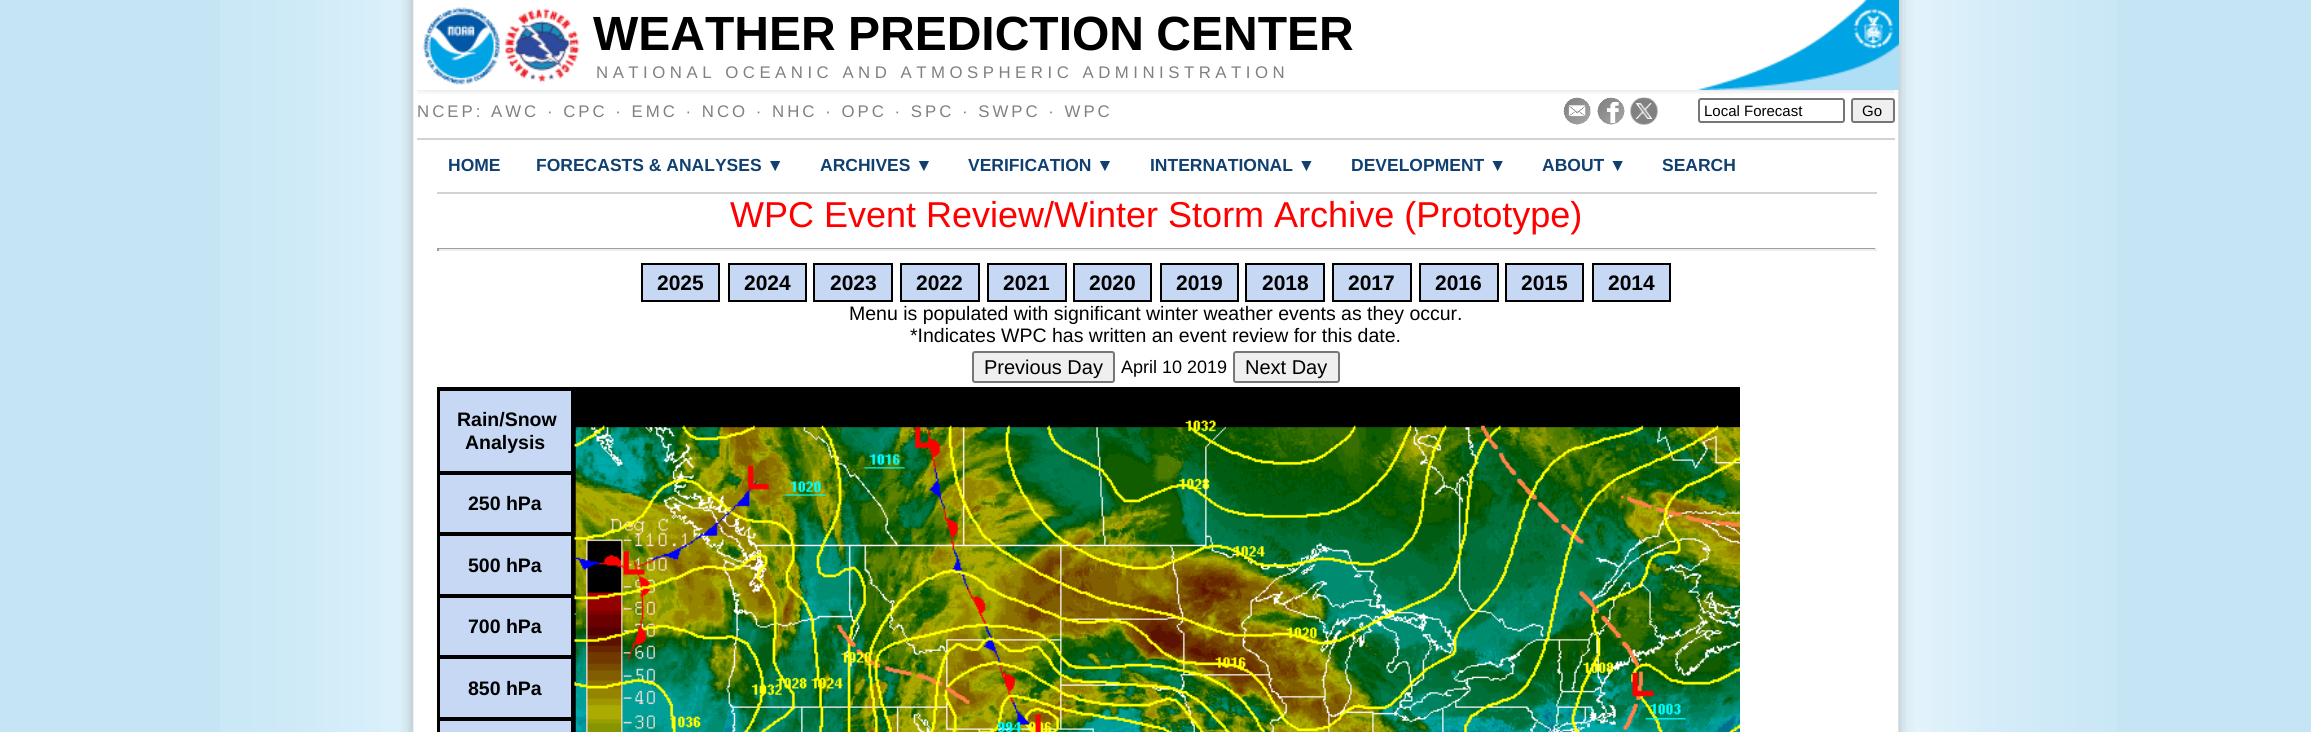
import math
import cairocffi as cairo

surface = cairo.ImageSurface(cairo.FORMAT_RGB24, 2311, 732)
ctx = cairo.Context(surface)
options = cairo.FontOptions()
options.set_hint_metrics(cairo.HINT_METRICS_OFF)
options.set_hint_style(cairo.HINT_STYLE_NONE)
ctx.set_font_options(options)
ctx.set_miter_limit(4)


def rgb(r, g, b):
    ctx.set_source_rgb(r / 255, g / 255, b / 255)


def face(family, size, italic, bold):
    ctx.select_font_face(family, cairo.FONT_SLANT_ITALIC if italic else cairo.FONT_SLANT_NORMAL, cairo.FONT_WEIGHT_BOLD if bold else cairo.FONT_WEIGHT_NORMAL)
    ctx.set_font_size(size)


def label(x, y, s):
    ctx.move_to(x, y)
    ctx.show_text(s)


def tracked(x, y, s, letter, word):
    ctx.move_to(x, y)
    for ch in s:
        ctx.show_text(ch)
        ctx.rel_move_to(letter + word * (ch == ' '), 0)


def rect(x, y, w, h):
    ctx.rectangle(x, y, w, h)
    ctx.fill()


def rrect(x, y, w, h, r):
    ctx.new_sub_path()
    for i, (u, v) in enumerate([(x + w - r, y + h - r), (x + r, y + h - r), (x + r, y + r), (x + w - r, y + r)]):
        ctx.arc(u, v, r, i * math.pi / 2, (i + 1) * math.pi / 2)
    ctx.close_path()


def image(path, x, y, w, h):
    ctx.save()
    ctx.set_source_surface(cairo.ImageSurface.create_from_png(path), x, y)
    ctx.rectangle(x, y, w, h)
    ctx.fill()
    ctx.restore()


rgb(197, 229, 245)
ctx.paint()
image('image0.png', 220, 0, 1897, 732)
image('image1.png', 422, 7, 78, 78)
image('image2.png', 505, 8, 75, 75)
face('Liberation Sans', 48, 0, 1)
rgb(0, 0, 0)
tracked(593, 50, 'WEATHER PREDICTION CENTER', 0, -1)
image('image3.png', 1697, 0, 202, 90)
face('Liberation Sans', 16.8, 0, 0)
rgb(128, 128, 128)
tracked(596, 78, 'NATIONAL OCEANIC AND ATMOSPHERIC ADMINISTRATION', 4.5, 0)
image('image4.png', 417, 90, 1478, 4)
rgb(211, 211, 211)
rect(417, 138, 1478, 2)
rgb(128, 128, 128)
tracked(417, 117, 'NCEP: AWC · CPC · EMC · NCO · NHC · OPC · SPC · SWPC · WPC', 3, 0)
image('image5.png', 1563, 97, 28, 28)
image('image6.png', 1597, 97, 28, 28)
image('image7.png', 1630, 97, 28, 28)
rrect(1699, 99, 145, 23, 2)
rgb(118, 118, 118)
ctx.stroke()
face('Liberation Sans', 15, 0, 0)
rgb(0, 0, 0)
label(1704, 116, 'Local Forecast')
rgb(239, 239, 239)
rrect(1852, 99, 42, 23, 2)
ctx.fill_preserve()
rgb(118, 118, 118)
ctx.stroke()
rgb(0, 0, 0)
label(1862, 116, 'Go')
rgb(211, 211, 211)
rect(437, 192, 1440, 2)
face('Liberation Sans', 17.5, 0, 1)
rgb(16, 64, 112)
label(448, 171, 'HOME')
label(536, 171, 'FORECASTS & ANALYSES ▼')
label(820, 171, 'ARCHIVES ▼')
label(968, 171, 'VERIFICATION ▼')
label(1150, 171, 'INTERNATIONAL ▼')
label(1351, 171, 'DEVELOPMENT ▼')
label(1542, 171, 'ABOUT ▼')
label(1662, 171, 'SEARCH')
face('Liberation Sans', 36, 0, 0)
rgb(255, 0, 0)
label(730, 227, 'WPC Event Review/Winter Storm Archive (Prototype)')
rgb(159, 159, 159)
rect(437, 248, 1440, 1)
rgb(238, 238, 238)
rect(1875, 248, 2, 3)
rect(437, 249, 1440, 2)
rgb(159, 159, 159)
rect(437, 248, 2, 3)
rgb(198, 216, 244)
ctx.rectangle(642, 264, 77, 37)
ctx.fill_preserve()
rgb(0, 0, 0)
ctx.stroke()
face('Liberation Sans', 21, 0, 1)
label(657, 290, '2025')
rgb(198, 216, 244)
ctx.rectangle(729, 264, 77, 37)
ctx.fill_preserve()
rgb(0, 0, 0)
ctx.stroke()
label(744, 290, '2024')
rgb(198, 216, 244)
ctx.rectangle(814, 264, 78, 37)
ctx.fill_preserve()
rgb(0, 0, 0)
ctx.stroke()
label(830, 290, '2023')
rgb(198, 216, 244)
ctx.rectangle(901, 264, 78, 37)
ctx.fill_preserve()
rgb(0, 0, 0)
ctx.stroke()
label(916, 290, '2022')
rgb(198, 216, 244)
ctx.rectangle(988, 264, 78, 37)
ctx.fill_preserve()
rgb(0, 0, 0)
ctx.stroke()
label(1003, 290, '2021')
rgb(198, 216, 244)
ctx.rectangle(1074, 264, 77, 37)
ctx.fill_preserve()
rgb(0, 0, 0)
ctx.stroke()
label(1089, 290, '2020')
rgb(198, 216, 244)
ctx.rectangle(1161, 264, 77, 37)
ctx.fill_preserve()
rgb(0, 0, 0)
ctx.stroke()
label(1176, 290, '2019')
rgb(198, 216, 244)
ctx.rectangle(1246, 264, 78, 37)
ctx.fill_preserve()
rgb(0, 0, 0)
ctx.stroke()
label(1262, 290, '2018')
rgb(198, 216, 244)
ctx.rectangle(1333, 264, 78, 37)
ctx.fill_preserve()
rgb(0, 0, 0)
ctx.stroke()
label(1348, 290, '2017')
rgb(198, 216, 244)
ctx.rectangle(1420, 264, 78, 37)
ctx.fill_preserve()
rgb(0, 0, 0)
ctx.stroke()
label(1435, 290, '2016')
rgb(198, 216, 244)
ctx.rectangle(1506, 264, 77, 37)
ctx.fill_preserve()
rgb(0, 0, 0)
ctx.stroke()
label(1521, 290, '2015')
rgb(198, 216, 244)
ctx.rectangle(1593, 264, 77, 37)
ctx.fill_preserve()
rgb(0, 0, 0)
ctx.stroke()
label(1608, 290, '2014')
face('Liberation Sans', 19.5, 0, 0)
label(849, 320, 'Menu is populated with significant winter weather events as they occur.')
label(910, 342, '*Indicates WPC has written an event review for this date.')
rgb(239, 239, 239)
rrect(973, 352, 141, 30, 2)
ctx.fill_preserve()
rgb(118, 118, 118)
ctx.stroke()
face('Liberation Sans', 20, 0, 0)
rgb(0, 0, 0)
label(984, 374, 'Previous Day')
face('Liberation Sans', 18, 0, 0)
label(1121, 373, 'April 10 2019')
rgb(239, 239, 239)
rrect(1234, 352, 105, 30, 2)
ctx.fill_preserve()
rgb(118, 118, 118)
ctx.stroke()
face('Liberation Sans', 20, 0, 0)
rgb(0, 0, 0)
label(1245, 374, 'Next Day')
ctx.rectangle(438, 388, 136, 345)
ctx.stroke()
rgb(198, 216, 244)
ctx.rectangle(439, 390, 133, 82)
ctx.fill_preserve()
rgb(0, 0, 0)
ctx.stroke()
face('Liberation Sans', 19.5, 0, 1)
label(457, 426, 'Rain/Snow')
label(465, 449, 'Analysis')
rgb(198, 216, 244)
ctx.rectangle(439, 474, 133, 59)
ctx.fill_preserve()
rgb(0, 0, 0)
ctx.stroke()
label(468, 510, '250 hPa')
rgb(198, 216, 244)
ctx.rectangle(439, 535, 133, 60)
ctx.fill_preserve()
rgb(0, 0, 0)
ctx.stroke()
label(468, 572, '500 hPa')
rgb(198, 216, 244)
ctx.rectangle(439, 597, 133, 59)
ctx.fill_preserve()
rgb(0, 0, 0)
ctx.stroke()
label(468, 633, '700 hPa')
rgb(198, 216, 244)
ctx.rectangle(439, 658, 133, 60)
ctx.fill_preserve()
rgb(0, 0, 0)
ctx.stroke()
label(468, 695, '850 hPa')
rgb(198, 216, 244)
ctx.rectangle(439, 720, 133, 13)
ctx.fill_preserve()
rgb(0, 0, 0)
ctx.stroke()
image('image8.png', 574, 387, 1166, 345)
surface.write_to_png('render.png')
